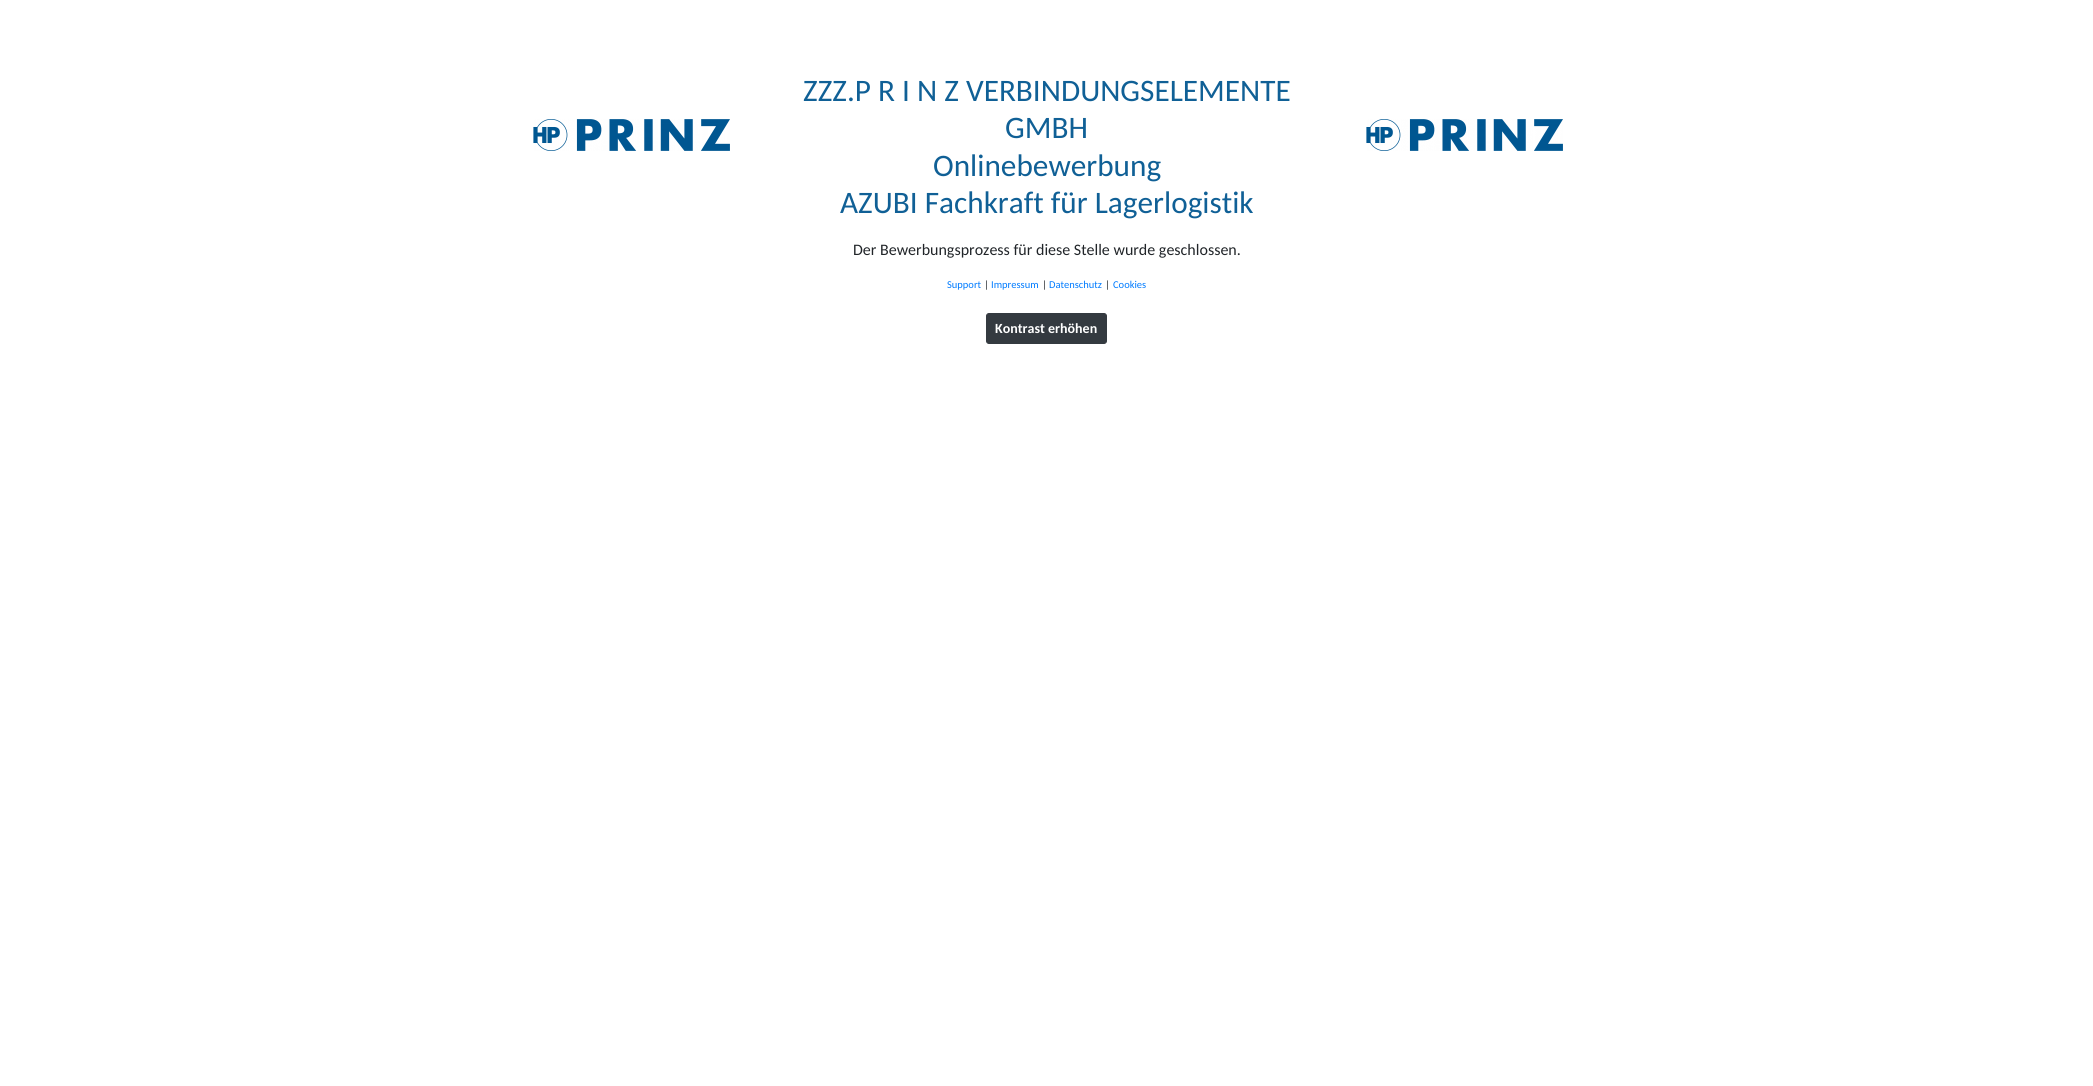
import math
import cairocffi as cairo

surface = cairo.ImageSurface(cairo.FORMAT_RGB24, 2093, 1086)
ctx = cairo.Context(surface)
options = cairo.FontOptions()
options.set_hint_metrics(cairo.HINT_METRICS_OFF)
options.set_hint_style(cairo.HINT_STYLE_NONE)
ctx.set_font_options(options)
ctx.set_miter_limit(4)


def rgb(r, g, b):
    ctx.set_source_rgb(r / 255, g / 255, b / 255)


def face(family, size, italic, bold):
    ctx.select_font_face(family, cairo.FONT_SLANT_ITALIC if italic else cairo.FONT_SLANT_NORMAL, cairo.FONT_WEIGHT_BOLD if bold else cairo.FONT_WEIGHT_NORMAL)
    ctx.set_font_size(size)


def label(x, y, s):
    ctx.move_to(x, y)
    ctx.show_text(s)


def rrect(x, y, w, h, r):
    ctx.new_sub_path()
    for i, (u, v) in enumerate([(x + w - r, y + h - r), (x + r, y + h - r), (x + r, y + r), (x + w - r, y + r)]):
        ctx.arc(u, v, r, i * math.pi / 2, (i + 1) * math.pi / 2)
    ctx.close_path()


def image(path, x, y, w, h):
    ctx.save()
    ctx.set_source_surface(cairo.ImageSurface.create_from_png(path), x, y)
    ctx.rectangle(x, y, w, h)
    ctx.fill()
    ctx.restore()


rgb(255, 255, 255)
ctx.paint()
image('image0.png', 533, 119, 197, 32)
face('Carlito', 31.25, 0, 0)
rgb(16, 96, 150)
label(803, 101, 'ZZZ.P R I N Z VERBINDUNGSELEMENTE')
label(1005, 138, 'GMBH')
label(933, 176, 'Onlinebewerbung')
label(840, 213, 'AZUBI Fachkraft für Lagerlogistik')
image('image0.png', 1366, 119, 197, 32)
face('Carlito', 16, 0, 0)
rgb(33, 37, 41)
label(853, 255, 'Der Bewerbungsprozess für diese Stelle wurde geschlossen.')
face('Carlito', 10.5, 0, 0)
rgb(0, 123, 255)
label(947, 288, 'Support')
rgb(33, 37, 41)
label(984, 288, '|')
rgb(0, 123, 255)
label(991, 288, 'Impressum')
rgb(33, 37, 41)
label(1042, 288, '|')
rgb(0, 123, 255)
label(1049, 288, 'Datenschutz')
rgb(33, 37, 41)
label(1105, 288, '|')
rgb(0, 123, 255)
label(1113, 288, 'Cookies')
rgb(52, 58, 64)
rrect(986.5, 313.5, 120, 30, 2.5)
ctx.fill_preserve()
ctx.set_line_width(1)
ctx.stroke()
face('Carlito', 14, 0, 1)
rgb(255, 255, 255)
label(995, 333, 'Kontrast erhöhen')
surface.write_to_png('render.png')
